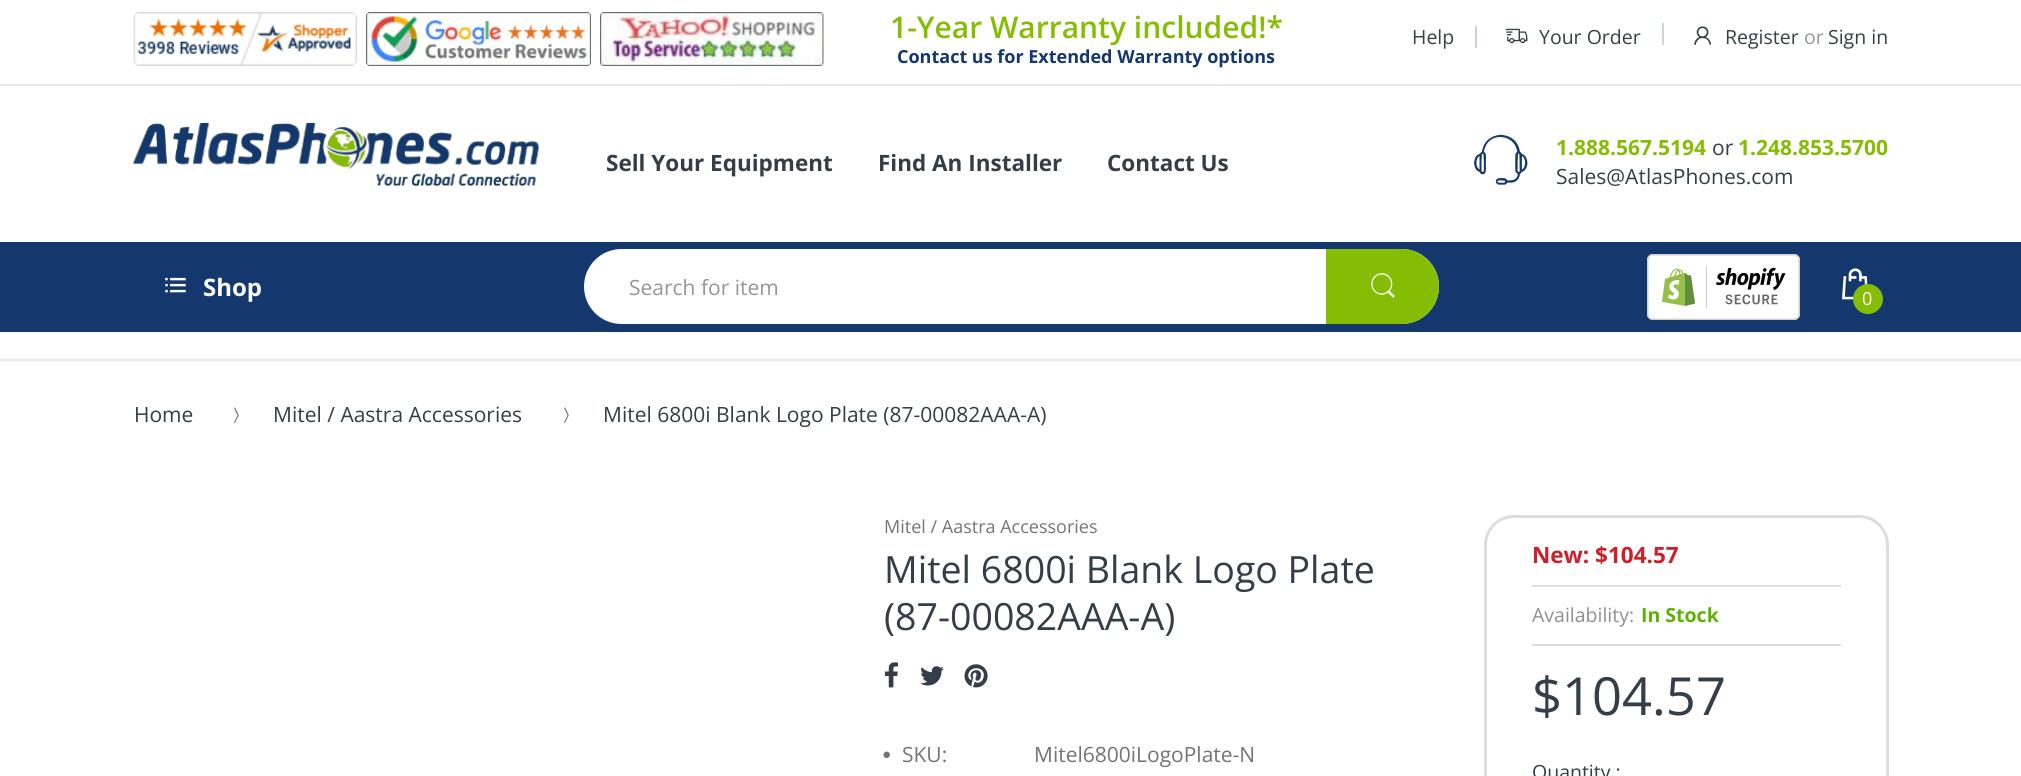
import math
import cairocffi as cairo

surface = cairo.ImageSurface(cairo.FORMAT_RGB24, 2021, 776)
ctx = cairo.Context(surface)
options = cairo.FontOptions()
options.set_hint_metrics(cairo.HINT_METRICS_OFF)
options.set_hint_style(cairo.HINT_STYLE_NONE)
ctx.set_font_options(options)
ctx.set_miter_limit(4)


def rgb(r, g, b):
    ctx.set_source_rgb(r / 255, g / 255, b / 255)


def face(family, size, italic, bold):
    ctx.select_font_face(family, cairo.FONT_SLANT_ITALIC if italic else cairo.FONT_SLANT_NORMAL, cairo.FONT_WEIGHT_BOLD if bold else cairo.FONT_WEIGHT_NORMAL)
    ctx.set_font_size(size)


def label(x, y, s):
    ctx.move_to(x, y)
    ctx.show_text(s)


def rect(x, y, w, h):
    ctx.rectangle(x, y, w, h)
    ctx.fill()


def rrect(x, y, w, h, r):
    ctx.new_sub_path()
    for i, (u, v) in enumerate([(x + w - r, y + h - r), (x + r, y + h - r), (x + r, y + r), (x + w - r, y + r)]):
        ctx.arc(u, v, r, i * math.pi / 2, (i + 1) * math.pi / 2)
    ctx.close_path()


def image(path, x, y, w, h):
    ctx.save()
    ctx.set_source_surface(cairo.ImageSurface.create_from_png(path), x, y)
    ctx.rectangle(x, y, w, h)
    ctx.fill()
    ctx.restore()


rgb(255, 255, 255)
ctx.paint()
rgb(234, 234, 234)
rect(0, 84, 2021, 2)
image('image0.png', 133, 12, 224, 54)
image('image1.png', 366, 12, 225, 54)
image('image2.png', 600, 12, 224, 54)
face('Open Sans SemiBold', 30, 0, 0)
rgb(133, 188, 4)
label(890, 38, '1-Year Warranty included!*')
face('Open Sans', 18, 0, 1)
rgb(20, 56, 109)
label(897, 63, 'Contact us for Extended Warranty options')
face('Open Sans', 19.5, 0, 0)
rgb(51, 65, 65)
label(1412, 44, 'Help')
rgb(202, 213, 213)
rect(1475, 26, 2, 22)
image('image3.png', 1505, 28, 23, 16)
rgb(51, 65, 65)
label(1539, 44, 'Your Order')
rgb(202, 213, 213)
rect(1662, 23, 2, 22)
image('image4.png', 1694, 26, 17, 19)
rgb(51, 65, 65)
label(1725, 44, 'Register')
rgb(149, 149, 149)
label(1804, 44, 'or')
rgb(51, 65, 65)
label(1828, 44, 'Sign in')
image('image5.png', 133, 123, 406, 63)
face('Open Sans', 22.5, 0, 1)
rgb(51, 62, 72)
label(606, 171, 'Sell Your Equipment')
label(878, 171, 'Find An Installer')
label(1107, 171, 'Contact Us')
image('image6.png', 1474, 134, 54, 51)
face('Open Sans', 21, 0, 1)
rgb(133, 188, 4)
label(1556, 155, '1.888.567.5194')
face('Open Sans', 21, 0, 0)
rgb(51, 62, 72)
label(1712, 155, 'or')
face('Open Sans', 21, 0, 1)
rgb(133, 188, 4)
label(1738, 155, '1.248.853.5700')
face('Open Sans', 21, 0, 0)
rgb(51, 62, 72)
label(1556, 184, 'Sales@AtlasPhones.com')
rgb(20, 56, 109)
rect(0, 242, 2021, 90)
image('image7.png', 165, 277, 21, 16)
face('Open Sans', 24, 0, 1)
rgb(255, 255, 255)
label(203, 296, 'Shop')
rrect(584, 249, 855, 75, 37.5)
ctx.fill()
face('Open Sans', 21, 0, 0)
rgb(149, 149, 149)
label(629, 295, 'Search for item')
rgb(133, 188, 4)
ctx.new_path()
ctx.move_to(1326, 249)
ctx.line_to(1401.5, 249)
ctx.curve_to(1422, 249, 1439, 266, 1439, 286.5)
ctx.curve_to(1439, 307, 1422, 324, 1401.5, 324)
ctx.line_to(1326, 324)
ctx.close_path()
ctx.fill()
image('image8.png', 1371, 273, 24, 25)
image('image9.png', 1647, 254, 153, 66)
image('image10.png', 1842, 268, 26, 32)
ctx.arc(1868, 299, 15, 0, 2 * math.pi)
ctx.fill()
face('Open Sans', 18, 0, 0)
rgb(255, 255, 255)
label(1862, 305, '0')
rgb(234, 234, 234)
rect(0, 359, 2021, 2)
face('Open Sans', 21, 0, 0)
rgb(51, 62, 72)
label(134, 422, 'Home')
image('image11.png', 234, 407, 5, 17)
label(273, 422, 'Mitel / Aastra Accessories')
image('image11.png', 564, 407, 5, 17)
label(603, 422, 'Mitel 6800i Blank Logo Plate (87-00082AAA-A)')
face('Open Sans', 18, 0, 0)
rgb(116, 116, 116)
label(884, 533, 'Mitel / Aastra Accessories')
face('Open Sans', 37.5, 0, 0)
rgb(51, 62, 72)
label(884, 583, 'Mitel 6800i Blank Logo Plate')
label(884, 630, '(87-00082AAA-A)')
image('image12.png', 884, 662, 14, 26)
image('image13.png', 920, 666, 24, 20)
image('image14.png', 964, 664, 24, 24)
image('image15.png', 883, 751, 7, 7)
face('Open Sans', 21, 0, 0)
rgb(116, 116, 116)
label(902, 762, 'SKU:')
label(1034, 762, 'Mitel6800iLogoPlate-N')
rrect(1485.5, 516.5, 402, 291, 28.5)
rgb(221, 221, 221)
ctx.set_line_width(3)
ctx.stroke()
rect(1532, 585, 309, 2)
face('Open Sans', 22.5, 0, 1)
rgb(206, 32, 41)
label(1532, 563, 'New: $104.57')
rgb(221, 221, 221)
rect(1532, 644, 309, 2)
face('Open Sans', 19.5, 0, 0)
rgb(143, 142, 148)
label(1532, 622, 'Availability:')
face('Open Sans', 19.5, 0, 1)
rgb(91, 179, 0)
label(1641, 622, 'In Stock')
face('Open Sans', 52.5, 0, 0)
rgb(51, 62, 72)
label(1532, 715, '$104.57')
face('Open Sans', 19.5, 0, 0)
label(1532, 779, 'Quantity :')
surface.write_to_png('render.png')
